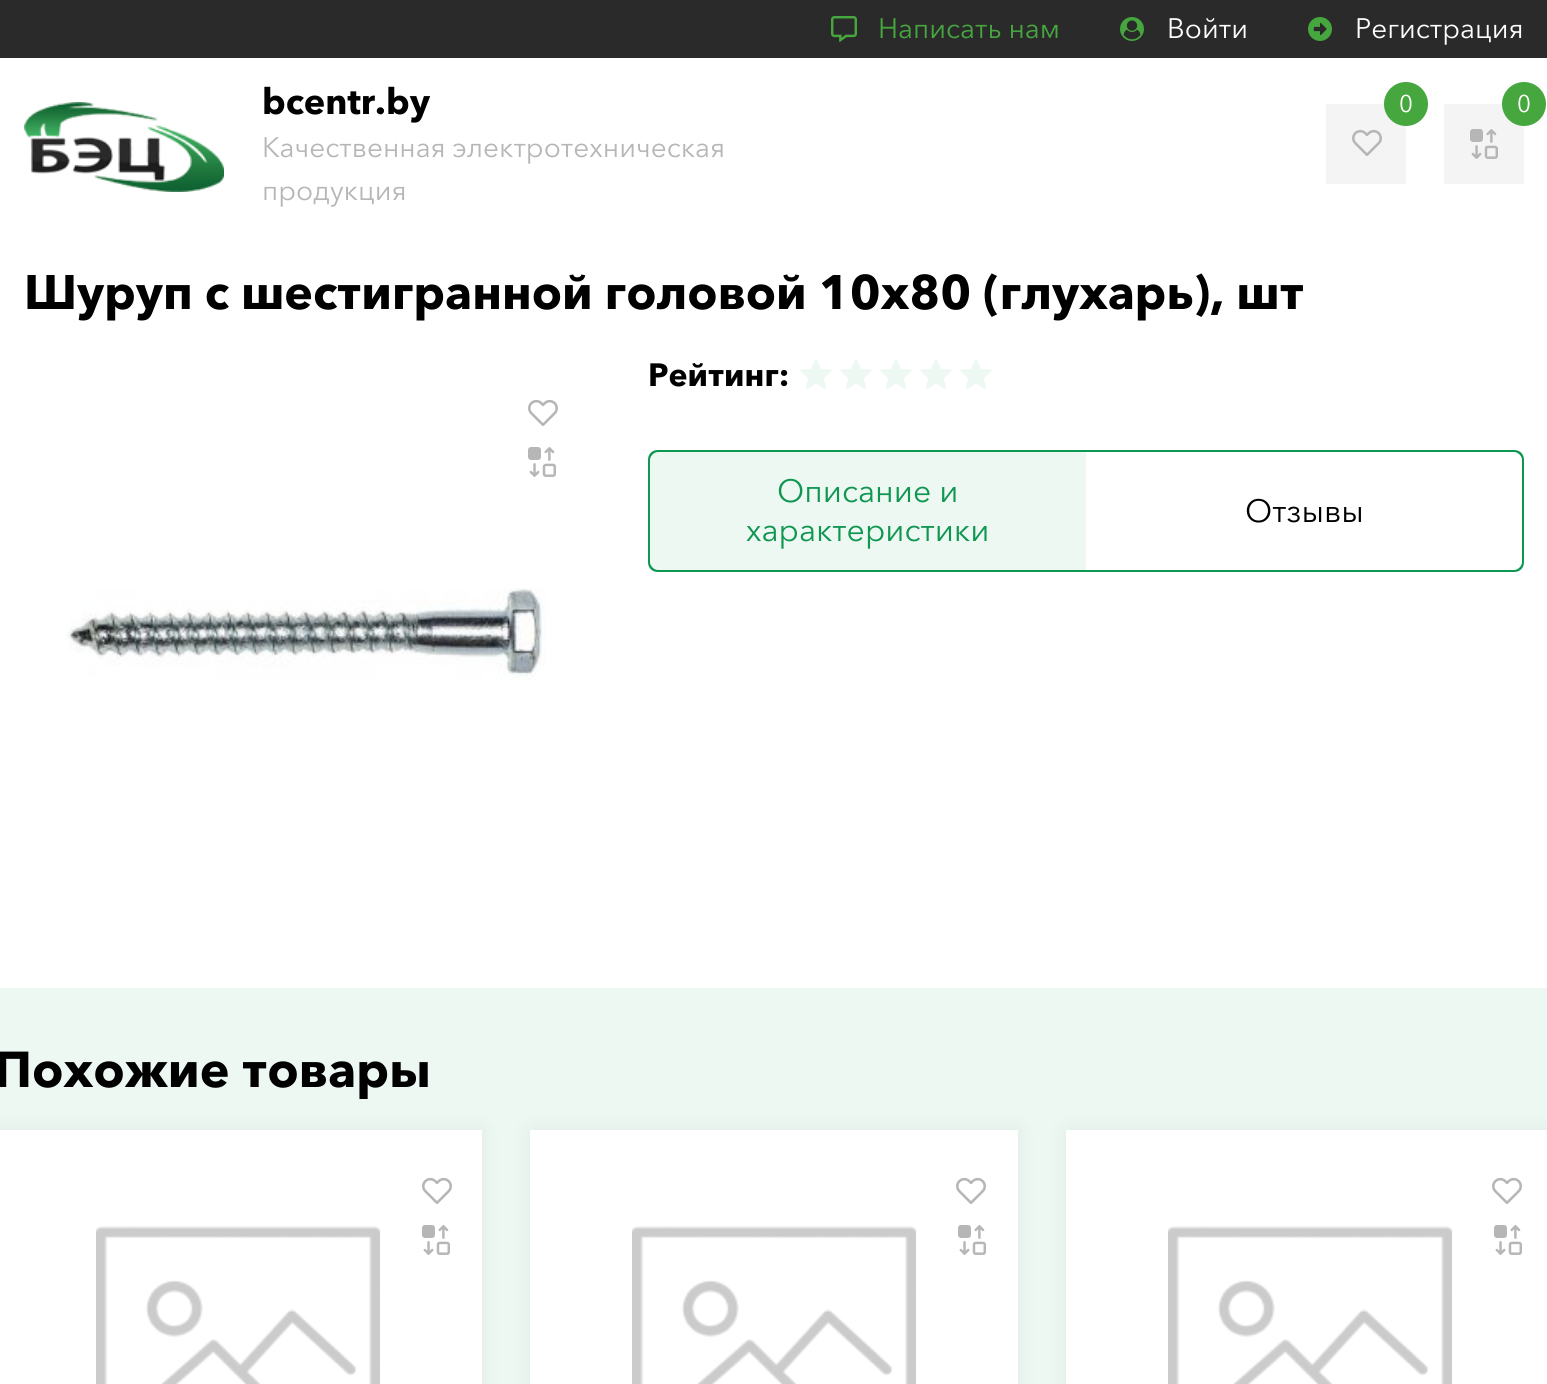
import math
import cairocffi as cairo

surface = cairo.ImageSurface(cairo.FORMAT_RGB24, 1547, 1384)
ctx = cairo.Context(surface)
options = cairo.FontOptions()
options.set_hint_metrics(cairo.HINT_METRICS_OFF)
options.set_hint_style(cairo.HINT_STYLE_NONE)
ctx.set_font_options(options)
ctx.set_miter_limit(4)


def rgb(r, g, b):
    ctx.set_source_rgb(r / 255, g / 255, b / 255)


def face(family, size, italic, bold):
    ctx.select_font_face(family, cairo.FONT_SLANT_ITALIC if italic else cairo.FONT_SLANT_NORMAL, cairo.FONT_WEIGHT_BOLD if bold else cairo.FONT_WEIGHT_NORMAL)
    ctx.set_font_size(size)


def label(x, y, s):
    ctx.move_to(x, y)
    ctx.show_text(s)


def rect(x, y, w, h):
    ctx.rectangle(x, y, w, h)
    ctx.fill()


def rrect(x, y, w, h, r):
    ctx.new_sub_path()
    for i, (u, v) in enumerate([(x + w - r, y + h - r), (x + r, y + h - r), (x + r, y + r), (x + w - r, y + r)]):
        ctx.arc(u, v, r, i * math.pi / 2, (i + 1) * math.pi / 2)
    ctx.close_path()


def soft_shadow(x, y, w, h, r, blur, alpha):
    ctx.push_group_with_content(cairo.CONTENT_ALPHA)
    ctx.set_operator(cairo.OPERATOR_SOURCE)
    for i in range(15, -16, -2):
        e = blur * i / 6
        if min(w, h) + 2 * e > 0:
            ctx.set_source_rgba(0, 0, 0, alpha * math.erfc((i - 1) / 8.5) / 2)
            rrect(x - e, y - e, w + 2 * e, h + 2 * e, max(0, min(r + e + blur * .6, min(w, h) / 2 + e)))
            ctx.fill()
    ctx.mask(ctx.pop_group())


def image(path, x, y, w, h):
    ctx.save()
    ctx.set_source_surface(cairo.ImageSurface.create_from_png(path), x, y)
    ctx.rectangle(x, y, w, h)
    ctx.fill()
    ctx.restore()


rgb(255, 255, 255)
ctx.paint()
rgb(42, 42, 42)
rect(0, 0, 1547, 58)
image('image0.png', 831, 16, 26, 26)
face('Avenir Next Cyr', 28, 0, 0)
rgb(69, 167, 62)
label(878, 38, 'Написать нам')
image('image1.png', 1120, 17, 24, 24)
rgb(255, 255, 255)
label(1167, 38, 'Войти')
image('image2.png', 1308, 17, 24, 24)
label(1355, 38, 'Регистрация')
image('image3.png', 24, 102, 200, 90)
face('Avenir Next Cyr', 36, 0, 1)
rgb(0, 0, 0)
label(262, 114, 'bcentr.by')
face('Avenir Next Cyr', 28, 0, 0)
rgb(182, 182, 182)
label(262, 157, 'Качественная электротехническая')
label(262, 200, 'продукция')
rgb(244, 244, 244)
rect(1326, 104, 80, 80)
rgb(69, 167, 62)
ctx.new_path()
ctx.arc(1406, 104, 22, 0, 2 * math.pi)
ctx.fill()
face('Avenir Next Cyr', 24, 0, 0)
rgb(255, 255, 255)
label(1399, 112, '0')
image('image4.png', 1352, 129, 30, 27)
rgb(244, 244, 244)
rect(1444, 104, 80, 80)
rgb(69, 167, 62)
ctx.arc(1524, 104, 22, 0, 2 * math.pi)
ctx.fill()
rgb(255, 255, 255)
label(1517, 112, '0')
image('image5.png', 1470, 129, 28, 30)
face('Avenir Next Cyr', 48, 0, 1)
rgb(0, 0, 0)
label(24, 309, 'Шуруп с шестигранной головой 10х80 (глухарь), шт')
image('image6.png', 528, 399, 30, 27)
image('image7.png', 528, 447, 28, 30)
image('image8.png', 66, 588, 481, 92)
face('Avenir Next Cyr', 32, 0, 1)
label(648, 386, 'Рейтинг:')
image('image9.png', 800, 359, 32, 30)
image('image9.png', 840, 359, 32, 30)
image('image9.png', 880, 359, 32, 30)
image('image9.png', 920, 359, 32, 30)
image('image9.png', 960, 359, 32, 30)
rgb(238, 248, 243)
ctx.new_path()
ctx.move_to(658, 450)
ctx.line_to(1086, 450)
ctx.line_to(1086, 572)
ctx.line_to(658, 572)
ctx.curve_to(652.5, 572, 648, 567.5, 648, 562)
ctx.line_to(648, 460)
ctx.curve_to(648, 454.5, 652.5, 450, 658, 450)
ctx.close_path()
ctx.fill()
rgb(15, 150, 80)
ctx.set_fill_rule(cairo.FILL_RULE_EVEN_ODD)
ctx.new_path()
ctx.move_to(658, 450)
ctx.line_to(1086, 450)
ctx.line_to(1086, 572)
ctx.line_to(658, 572)
ctx.curve_to(652, 572, 648, 568, 648, 562)
ctx.line_to(648, 460)
ctx.curve_to(648, 454, 652, 450, 658, 450)
ctx.close_path()
ctx.move_to(658, 452)
ctx.line_to(1086, 452)
ctx.line_to(1086, 570)
ctx.line_to(658, 570)
ctx.curve_to(654, 570, 650, 566, 650, 562)
ctx.line_to(650, 460)
ctx.curve_to(650, 456, 654, 452, 658, 452)
ctx.close_path()
ctx.fill()
face('Avenir Next Cyr', 32, 0, 0)
label(777, 502, 'Описание и')
label(746, 541, 'характеристики')
ctx.new_path()
ctx.move_to(1086, 450)
ctx.line_to(1514, 450)
ctx.curve_to(1520, 450, 1524, 454, 1524, 460)
ctx.line_to(1524, 562)
ctx.curve_to(1524, 568, 1520, 572, 1514, 572)
ctx.line_to(1086, 572)
ctx.close_path()
ctx.move_to(1086, 452)
ctx.line_to(1514, 452)
ctx.curve_to(1518, 452, 1522, 456, 1522, 460)
ctx.line_to(1522, 562)
ctx.curve_to(1522, 566, 1518, 570, 1514, 570)
ctx.line_to(1086, 570)
ctx.close_path()
ctx.fill()
rgb(0, 0, 0)
label(1245, 522, 'Отзывы')
rgb(238, 248, 243)
rect(0, 988, 1547, 396)
rgb(0, 0, 0)
soft_shadow(-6, 1130, 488, 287, 0, 11, 0.06)
face('Avenir Next Cyr', 50, 0, 1)
rgb(0, 0, 0)
label(-6, 1087, 'Похожие товары')
rgb(255, 255, 255)
rect(0, 1130, 482, 254)
image('image6.png', 422, 1177, 30, 27)
image('image7.png', 422, 1225, 28, 30)
image('image10.png', 96, 1226, 284, 158)
rgb(0, 0, 0)
soft_shadow(530, 1130, 488, 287, 0, 11, 0.06)
rgb(255, 255, 255)
rect(530, 1130, 488, 254)
image('image6.png', 956, 1177, 30, 27)
image('image7.png', 958, 1225, 28, 30)
image('image10.png', 632, 1226, 284, 158)
rgb(0, 0, 0)
soft_shadow(1066, 1130, 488, 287, 0, 11, 0.06)
rgb(255, 255, 255)
rect(1066, 1130, 481, 254)
image('image6.png', 1492, 1177, 30, 27)
image('image7.png', 1494, 1225, 28, 30)
image('image10.png', 1168, 1226, 284, 158)
surface.write_to_png('render.png')
